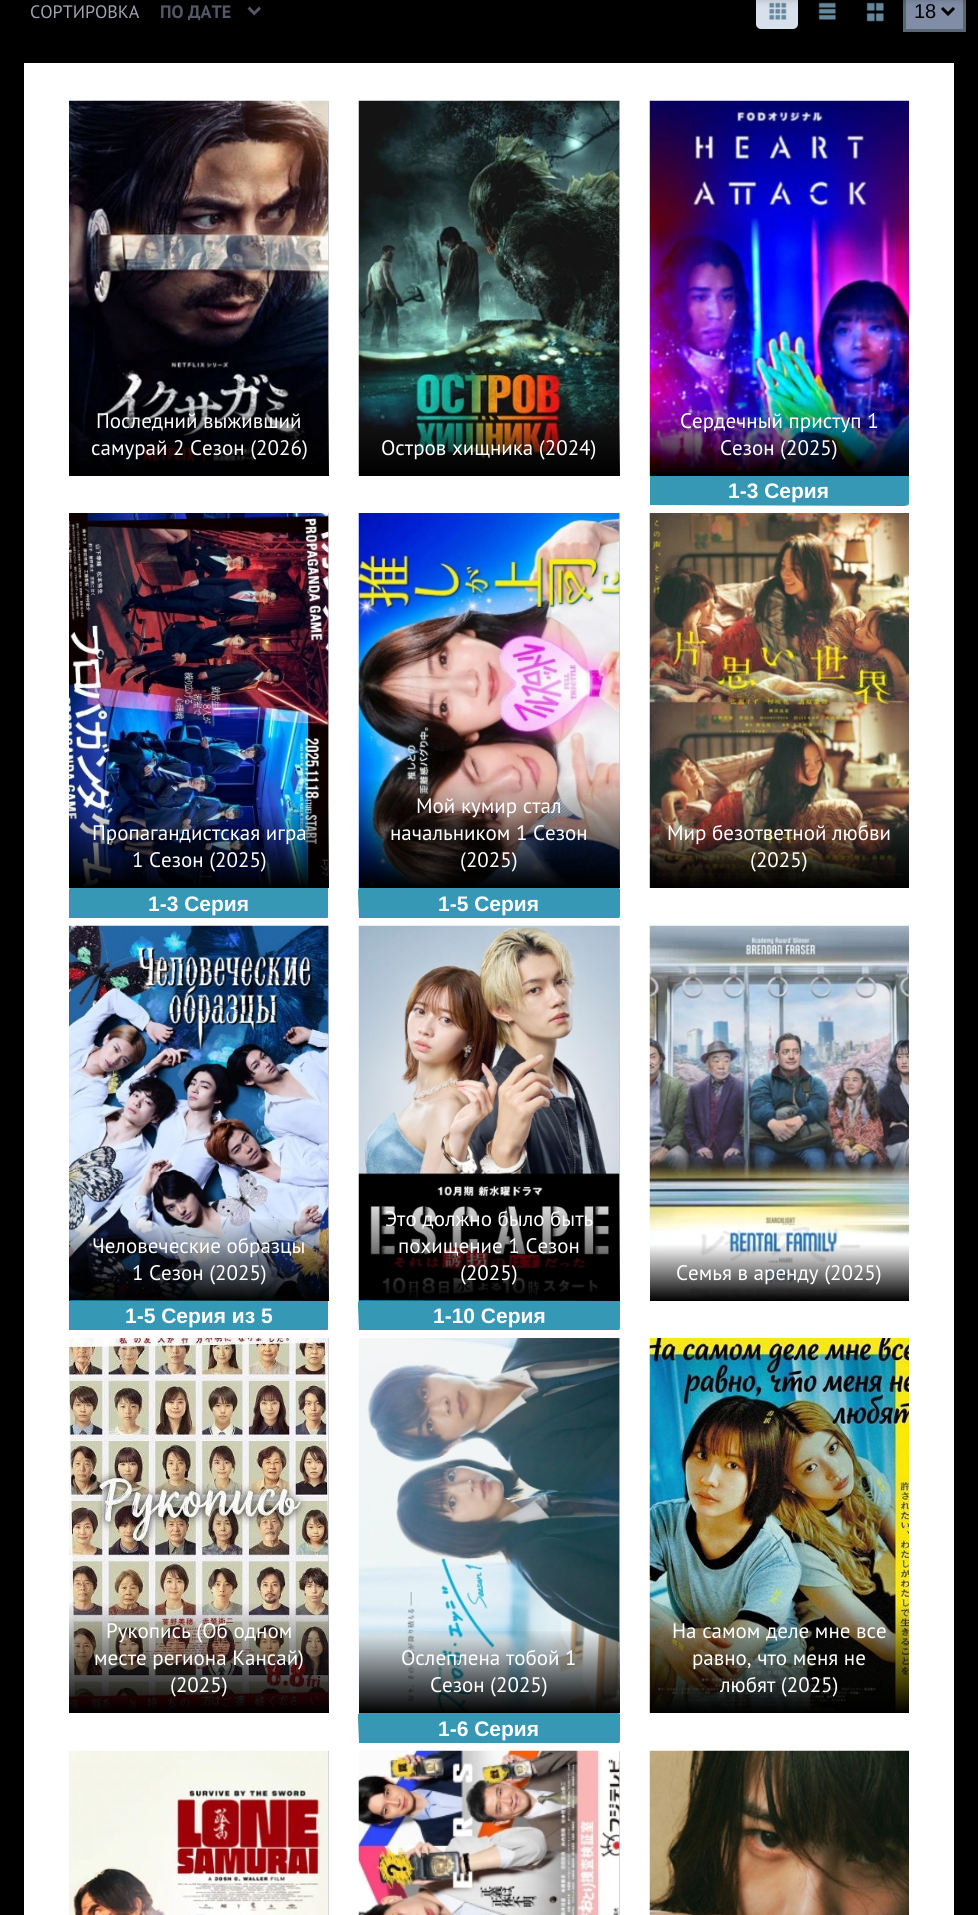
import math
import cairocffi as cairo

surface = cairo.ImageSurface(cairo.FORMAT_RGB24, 978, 1915)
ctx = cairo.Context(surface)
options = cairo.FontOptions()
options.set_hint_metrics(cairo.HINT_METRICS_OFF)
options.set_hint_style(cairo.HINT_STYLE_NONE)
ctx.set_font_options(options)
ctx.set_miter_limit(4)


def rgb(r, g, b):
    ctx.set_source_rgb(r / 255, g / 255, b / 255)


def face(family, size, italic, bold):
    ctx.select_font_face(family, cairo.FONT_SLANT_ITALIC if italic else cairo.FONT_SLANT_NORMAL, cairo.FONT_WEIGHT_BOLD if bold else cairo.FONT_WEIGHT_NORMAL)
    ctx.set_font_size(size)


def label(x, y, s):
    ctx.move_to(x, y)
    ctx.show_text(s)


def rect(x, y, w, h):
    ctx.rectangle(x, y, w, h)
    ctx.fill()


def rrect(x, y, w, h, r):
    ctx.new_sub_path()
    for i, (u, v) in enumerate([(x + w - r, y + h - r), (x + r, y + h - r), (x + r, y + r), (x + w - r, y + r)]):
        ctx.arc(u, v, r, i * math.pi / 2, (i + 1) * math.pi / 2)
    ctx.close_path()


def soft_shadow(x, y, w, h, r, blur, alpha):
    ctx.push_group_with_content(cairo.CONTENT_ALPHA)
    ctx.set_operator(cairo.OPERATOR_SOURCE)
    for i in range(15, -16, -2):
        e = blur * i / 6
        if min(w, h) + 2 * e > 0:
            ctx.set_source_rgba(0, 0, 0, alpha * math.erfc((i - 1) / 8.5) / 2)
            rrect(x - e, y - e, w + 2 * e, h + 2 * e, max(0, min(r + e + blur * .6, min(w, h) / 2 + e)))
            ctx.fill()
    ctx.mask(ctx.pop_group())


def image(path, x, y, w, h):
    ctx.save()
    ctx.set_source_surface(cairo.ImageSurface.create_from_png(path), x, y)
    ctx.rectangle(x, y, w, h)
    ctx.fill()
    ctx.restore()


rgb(0, 0, 0)
ctx.paint()
image('image0.png', 247, 6, 14, 10)
rgb(216, 224, 235)
rrect(756, -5, 42, 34, 5)
ctx.fill()
image('image1.png', 769, 2, 18, 18)
image('image2.png', 818, 2, 18, 18)
image('image3.png', 866, 2, 18, 20)
ctx.rectangle(904.5, -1.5, 60, 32)
rgb(89, 103, 115)
ctx.set_line_width(3)
ctx.stroke()
rgb(129, 141, 166)
rect(906, 0, 57, 29)
ctx.new_path()
ctx.move_to(942, 8)
ctx.line_to(948, 14)
ctx.line_to(954, 8)
rgb(0, 0, 0)
ctx.stroke()
rgb(0, 0, 0)
soft_shadow(0, -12, 978, 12, 0, 4, 0.2)
face('PT Sans', 18, 0, 0)
rgb(159, 164, 176)
label(30, 18, 'СОРТИРОВКА')
face('PT Sans', 18, 0, 1)
rgb(83, 88, 101)
label(160, 18, 'ПО ДАТЕ')
face('Liberation Sans', 20, 0, 0)
rgb(0, 0, 0)
label(914, 18, '18')
rgb(255, 255, 255)
rect(24, 63, 930, 1852)
rgb(204, 204, 204)
rect(69, 101, 260, 375)
image('image4.png', 69, 100, 260, 376)
gradient = cairo.LinearGradient(199, 392, 199, 476)
gradient.add_color_stop_rgba(0, 0, 0, 0, 0)
gradient.add_color_stop_rgba(1, 0, 0, 0, 1)
ctx.set_source(gradient)
rect(69, 394, 260, 82)
face('PT Sans', 21, 0, 0)
rgb(255, 255, 255)
label(96, 428, 'Последний выживший')
label(91, 455, 'самурай 2 Сезон (2026)')
rgb(204, 204, 204)
rect(359, 101, 261, 375)
image('image5.png', 358, 100, 262, 376)
gradient = cairo.LinearGradient(489, 419, 489, 476)
gradient.add_color_stop_rgba(0, 0, 0, 0, 0)
gradient.add_color_stop_rgba(1, 0, 0, 0, 1)
ctx.set_source(gradient)
rect(359, 420, 261, 56)
rgb(255, 255, 255)
label(381, 455, 'Остров хищника (2024)')
rgb(204, 204, 204)
rect(650, 475, 259, 1)
image('image6.png', 649, 100, 260, 376)
gradient = cairo.LinearGradient(779, 392, 779, 476)
gradient.add_color_stop_rgba(0, 0, 0, 0, 0)
gradient.add_color_stop_rgba(1, 0, 0, 0, 1)
ctx.set_source(gradient)
rect(650, 394, 259, 82)
rgb(255, 255, 255)
label(680, 428, 'Сердечный приступ 1')
label(720, 455, 'Сезон (2025)')
rgb(54, 152, 180)
ctx.new_path()
ctx.move_to(655, 476)
ctx.line_to(908, 476)
ctx.line_to(909, 476)
ctx.line_to(909, 500)
ctx.curve_to(909, 506, 909, 505, 904, 506)
ctx.line_to(651, 505)
ctx.line_to(650, 505)
ctx.line_to(650, 481)
ctx.curve_to(650, 475, 649, 476, 655, 476)
ctx.close_path()
ctx.fill()
face('Liberation Sans', 21, 0, 1)
rgb(255, 255, 255)
label(728, 498, '1-3 Серия')
rgb(204, 204, 204)
rect(328, 513, 1, 375)
image('image7.png', 69, 513, 260, 375)
gradient = cairo.LinearGradient(199, 804, 199, 888)
gradient.add_color_stop_rgba(0, 0, 0, 0, 0)
gradient.add_color_stop_rgba(1, 0, 0, 0, 1)
ctx.set_source(gradient)
rect(69, 806, 260, 82)
face('PT Sans', 21, 0, 0)
rgb(255, 255, 255)
label(92, 840, 'Пропагандистская игра')
label(132, 867, '1 Сезон (2025)')
rgb(54, 152, 180)
ctx.new_path()
ctx.move_to(74, 888)
ctx.line_to(328, 888)
ctx.line_to(328, 889)
ctx.line_to(328, 913)
ctx.curve_to(328, 919, 329, 918, 323, 918)
ctx.line_to(71, 918)
ctx.line_to(69, 918)
ctx.line_to(69, 893)
ctx.curve_to(69, 887, 69, 888, 74, 888)
ctx.close_path()
ctx.fill()
face('Liberation Sans', 21, 0, 1)
rgb(255, 255, 255)
label(148, 911, '1-3 Серия')
rgb(204, 204, 204)
rect(619, 513, 1, 374)
image('image8.png', 358, 513, 262, 375)
gradient = cairo.LinearGradient(489, 777, 489, 888)
gradient.add_color_stop_rgba(0, 0, 0, 0, 0)
gradient.add_color_stop_rgba(1, 0, 0, 0, 1)
ctx.set_source(gradient)
rect(359, 779, 261, 109)
face('PT Sans', 21, 0, 0)
rgb(255, 255, 255)
label(416, 813, 'Мой кумир стал')
label(390, 840, 'начальником 1 Сезон')
label(460, 867, '(2025)')
rgb(54, 152, 180)
ctx.new_path()
ctx.move_to(364, 888)
ctx.line_to(619, 888)
ctx.line_to(620, 889)
ctx.line_to(620, 913)
ctx.curve_to(620, 919, 620, 918, 614, 918)
ctx.line_to(360, 918)
ctx.line_to(359, 918)
ctx.line_to(358, 893)
ctx.curve_to(358, 887, 358, 888, 364, 888)
ctx.close_path()
ctx.fill()
face('Liberation Sans', 21, 0, 1)
rgb(255, 255, 255)
label(438, 911, '1-5 Серия')
image('image9.png', 649, 513, 260, 375)
face('PT Sans', 21, 0, 0)
label(667, 840, 'Мир безответной любви')
label(750, 867, '(2025)')
rgb(204, 204, 204)
rect(69, 926, 260, 375)
image('image10.png', 69, 925, 260, 376)
gradient = cairo.LinearGradient(199, 1217, 199, 1301)
gradient.add_color_stop_rgba(0, 0, 0, 0, 0)
gradient.add_color_stop_rgba(1, 0, 0, 0, 1)
ctx.set_source(gradient)
rect(69, 1219, 260, 82)
rgb(255, 255, 255)
label(92, 1253, 'Человеческие образцы')
label(132, 1280, '1 Сезон (2025)')
ctx.set_source_rgba(0.094, 0.537, 0.663, 0.87)
ctx.new_path()
ctx.move_to(74, 1300)
ctx.line_to(328, 1301)
ctx.line_to(328, 1325)
ctx.curve_to(328, 1331, 329, 1330, 323, 1330)
ctx.line_to(71, 1330)
ctx.line_to(69, 1330)
ctx.line_to(69, 1306)
ctx.curve_to(69, 1300, 69, 1300, 74, 1300)
ctx.close_path()
ctx.fill()
face('Liberation Sans', 21, 0, 1)
rgb(255, 255, 255)
label(125, 1323, '1-5 Серия из 5')
rgb(204, 204, 204)
rect(619, 926, 1, 374)
image('image11.png', 358, 925, 262, 376)
gradient = cairo.LinearGradient(489, 1190, 489, 1301)
gradient.add_color_stop_rgba(0, 0, 0, 0, 0)
gradient.add_color_stop_rgba(1, 0, 0, 0, 1)
ctx.set_source(gradient)
rect(359, 1192, 261, 109)
face('PT Sans', 21, 0, 0)
rgb(255, 255, 255)
label(385, 1226, 'Это должно было быть')
label(398, 1253, 'похищение 1 Сезон')
label(460, 1280, '(2025)')
ctx.set_source_rgba(0.094, 0.537, 0.663, 0.87)
ctx.new_path()
ctx.move_to(364, 1300)
ctx.line_to(619, 1301)
ctx.line_to(620, 1301)
ctx.line_to(620, 1325)
ctx.curve_to(620, 1331, 620, 1330, 614, 1330)
ctx.line_to(360, 1330)
ctx.line_to(359, 1330)
ctx.line_to(358, 1306)
ctx.curve_to(358, 1300, 358, 1300, 364, 1300)
ctx.close_path()
ctx.fill()
face('Liberation Sans', 21, 0, 1)
rgb(255, 255, 255)
label(433, 1323, '1-10 Серия')
rgb(204, 204, 204)
rect(650, 1300, 259, 1)
image('image12.png', 649, 925, 260, 376)
gradient = cairo.LinearGradient(779, 1244, 779, 1301)
gradient.add_color_stop_rgba(0, 0, 0, 0, 0)
gradient.add_color_stop_rgba(1, 0, 0, 0, 1)
ctx.set_source(gradient)
rect(650, 1245, 259, 56)
face('PT Sans', 21, 0, 0)
rgb(255, 255, 255)
label(676, 1280, 'Семья в аренду (2025)')
rgb(204, 204, 204)
rect(328, 1338, 1, 374)
image('image13.png', 69, 1338, 260, 374)
gradient = cairo.LinearGradient(199, 1602, 199, 1713)
gradient.add_color_stop_rgba(0, 0, 0, 0, 0)
gradient.add_color_stop_rgba(1, 0, 0, 0, 1)
ctx.set_source(gradient)
rect(69, 1604, 260, 109)
rgb(255, 255, 255)
label(106, 1638, 'Рукопись (Об одном')
label(94, 1665, 'месте региона Кансай)')
label(170, 1692, '(2025)')
rgb(204, 204, 204)
rect(619, 1338, 1, 375)
image('image14.png', 358, 1338, 262, 375)
gradient = cairo.LinearGradient(489, 1629, 489, 1713)
gradient.add_color_stop_rgba(0, 0, 0, 0, 0)
gradient.add_color_stop_rgba(1, 0, 0, 0, 1)
ctx.set_source(gradient)
rect(359, 1631, 261, 82)
rgb(255, 255, 255)
label(401, 1665, 'Ослеплена тобой 1')
label(430, 1692, 'Сезон (2025)')
rgb(54, 152, 180)
ctx.new_path()
ctx.move_to(364, 1713)
ctx.line_to(619, 1713)
ctx.line_to(620, 1714)
ctx.line_to(620, 1738)
ctx.curve_to(620, 1744, 620, 1743, 614, 1743)
ctx.line_to(360, 1743)
ctx.line_to(359, 1743)
ctx.line_to(358, 1718)
ctx.curve_to(358, 1712, 358, 1713, 364, 1713)
ctx.close_path()
ctx.fill()
face('Liberation Sans', 21, 0, 1)
rgb(255, 255, 255)
label(438, 1736, '1-6 Серия')
image('image15.png', 649, 1338, 260, 375)
face('PT Sans', 21, 0, 0)
label(672, 1638, 'На самом деле мне все')
label(692, 1665, 'равно, что меня не')
label(720, 1692, 'любят (2025)')
rgb(204, 204, 204)
rect(328, 1751, 1, 164)
image('image16.png', 69, 1750, 260, 165)
rect(619, 1751, 1, 164)
image('image17.png', 358, 1750, 262, 165)
image('image18.png', 649, 1750, 260, 165)
surface.write_to_png('render.png')
